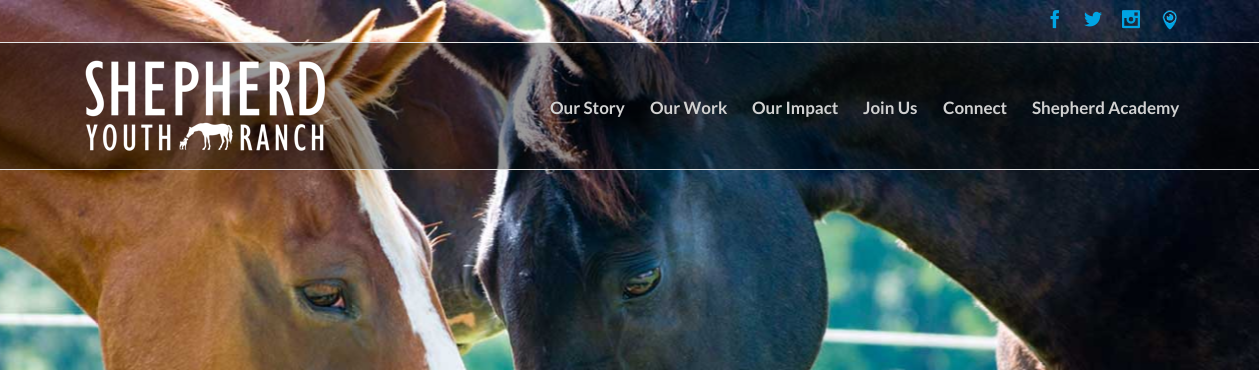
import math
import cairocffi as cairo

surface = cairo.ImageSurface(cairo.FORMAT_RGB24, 1259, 370)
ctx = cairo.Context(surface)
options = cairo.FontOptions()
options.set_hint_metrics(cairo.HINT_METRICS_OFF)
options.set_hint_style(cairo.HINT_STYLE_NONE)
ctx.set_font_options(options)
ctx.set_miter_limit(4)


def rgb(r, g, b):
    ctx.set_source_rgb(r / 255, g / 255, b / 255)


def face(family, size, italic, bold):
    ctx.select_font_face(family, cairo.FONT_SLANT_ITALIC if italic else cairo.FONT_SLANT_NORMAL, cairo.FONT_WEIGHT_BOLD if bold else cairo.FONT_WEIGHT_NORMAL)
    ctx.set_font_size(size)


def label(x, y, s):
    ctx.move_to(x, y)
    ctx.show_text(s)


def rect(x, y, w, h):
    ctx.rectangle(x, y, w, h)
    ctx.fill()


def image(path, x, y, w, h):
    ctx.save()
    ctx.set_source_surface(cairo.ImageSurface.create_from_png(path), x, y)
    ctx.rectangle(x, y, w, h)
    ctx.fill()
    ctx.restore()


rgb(255, 255, 255)
ctx.paint()
image('image0.png', 0, 0, 1259, 370)
rgb(229, 229, 229)
rect(0, 42, 1259, 1)
image('image1.png', 1050, 10, 9, 19)
image('image2.png', 1084, 11, 18, 16)
image('image3.png', 1122, 10, 18, 19)
image('image4.png', 1162, 10, 15, 20)
ctx.set_source_rgba(0.008, 0.008, 0.008, 0.4)
rect(0, 43, 1259, 126)
rgb(229, 229, 229)
rect(0, 169, 1259, 1)
image('image5.png', 85, 60, 241, 91)
face('Lato', 17, 0, 1)
rgb(209, 209, 209)
label(550, 114, 'Our Story')
label(650, 114, 'Our Work')
label(752, 114, 'Our Impact')
label(863, 114, 'Join Us')
label(943, 114, 'Connect')
label(1032, 114, 'Shepherd Academy')
surface.write_to_png('render.png')
